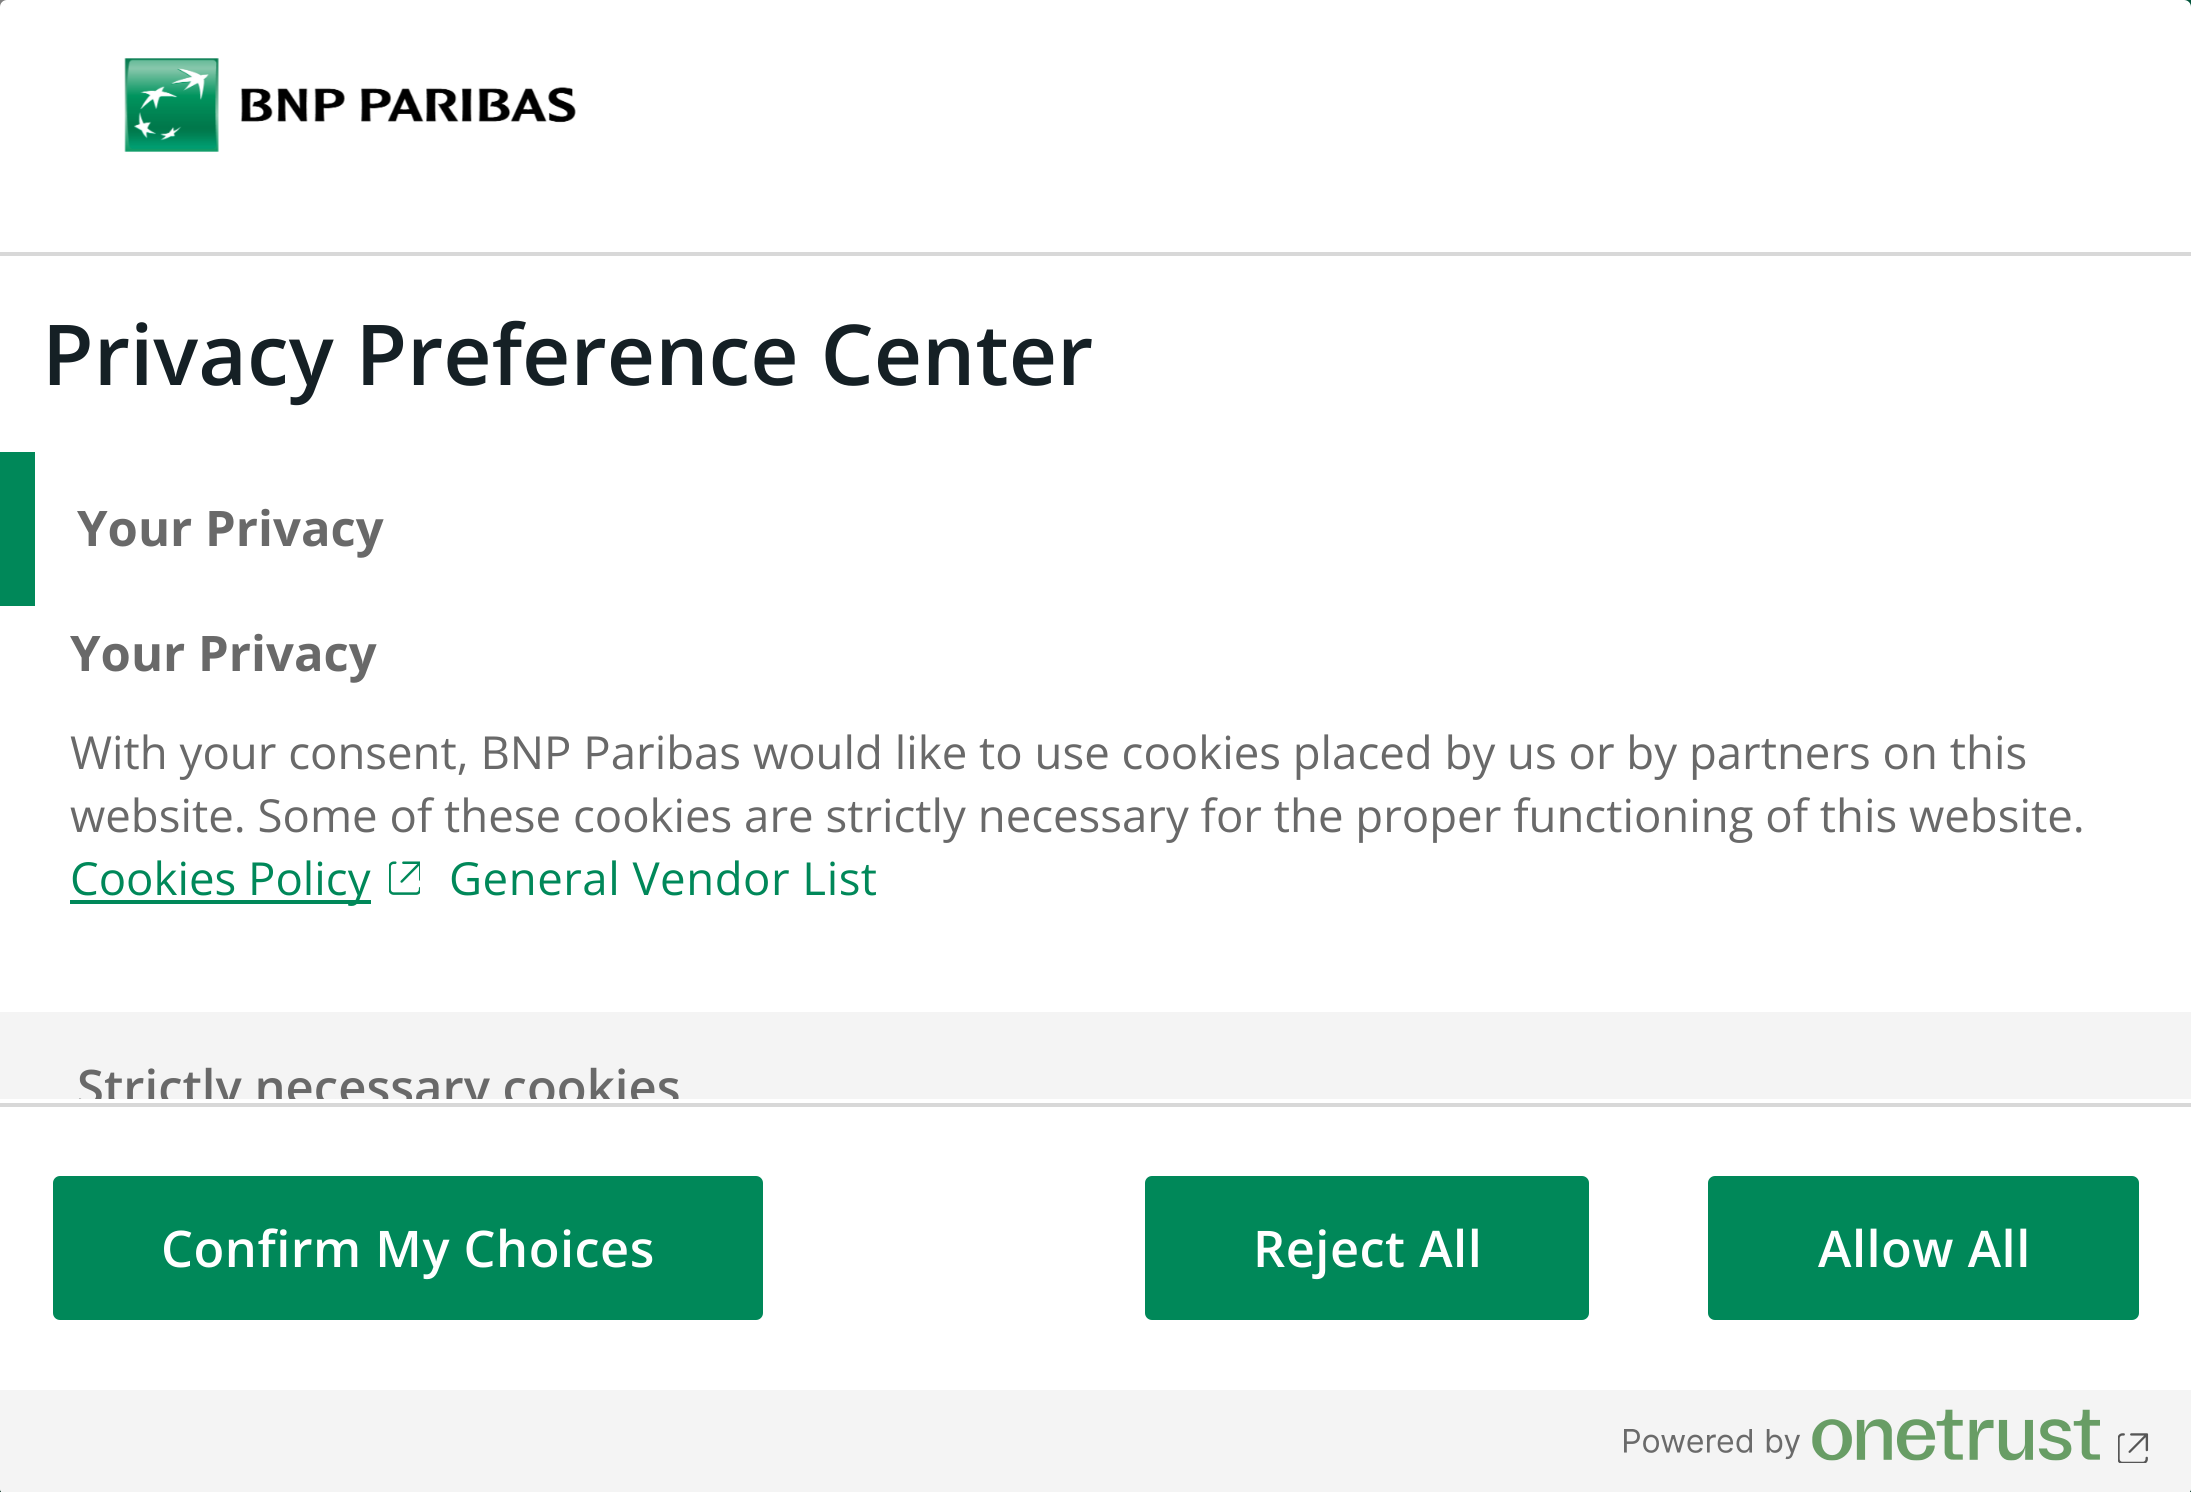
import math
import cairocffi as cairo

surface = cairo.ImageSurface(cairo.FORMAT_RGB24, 2191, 1492)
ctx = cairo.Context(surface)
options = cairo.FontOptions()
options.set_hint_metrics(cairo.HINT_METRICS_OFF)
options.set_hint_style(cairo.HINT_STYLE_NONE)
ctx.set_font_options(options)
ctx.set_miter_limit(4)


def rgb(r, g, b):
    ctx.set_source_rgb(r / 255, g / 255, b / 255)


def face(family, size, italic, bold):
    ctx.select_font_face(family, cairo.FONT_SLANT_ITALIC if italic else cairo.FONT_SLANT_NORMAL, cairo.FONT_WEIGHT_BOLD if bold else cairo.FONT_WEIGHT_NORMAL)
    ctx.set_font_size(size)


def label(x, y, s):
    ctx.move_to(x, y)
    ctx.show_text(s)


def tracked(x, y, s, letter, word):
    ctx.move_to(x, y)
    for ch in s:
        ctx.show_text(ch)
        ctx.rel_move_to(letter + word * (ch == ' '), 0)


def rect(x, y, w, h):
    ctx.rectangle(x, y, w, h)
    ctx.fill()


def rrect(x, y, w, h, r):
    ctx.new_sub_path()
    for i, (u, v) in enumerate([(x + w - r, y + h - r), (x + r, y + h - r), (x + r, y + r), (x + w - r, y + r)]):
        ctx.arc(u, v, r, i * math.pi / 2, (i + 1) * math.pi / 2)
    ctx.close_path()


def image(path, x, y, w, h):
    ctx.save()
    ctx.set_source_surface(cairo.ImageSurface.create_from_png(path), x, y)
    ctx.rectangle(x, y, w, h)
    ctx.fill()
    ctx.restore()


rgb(1, 47, 30)
ctx.paint()
rgb(128, 128, 128)
rect(0, 0, 7, 7)
rgb(2, 84, 59)
rect(2184, 0, 7, 7)
rgb(255, 255, 255)
rrect(0, 0, 2191, 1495, 7)
ctx.fill()
rgb(216, 216, 216)
rect(0, 252, 2191, 4)
image('image0.png', 124, 58, 452, 94)
face('Open Sans SemiBold', 84, 0, 0)
rgb(21, 32, 37)
label(42, 385, 'Privacy Preference Center')
rgb(0, 136, 89)
rect(0, 452, 35, 154)
face('Open Sans', 49, 0, 1)
rgb(105, 105, 105)
label(77, 546, 'Your Privacy')
label(70, 671, 'Your Privacy')
face('Open Sans', 45.55, 0, 0)
label(70, 769, 'With your consent, BNP Paribas would like to use cookies placed by us or by partners on this')
label(70, 832, 'website. Some of these cookies are strictly necessary for the proper functioning of this website.')
rgb(0, 136, 89)
rect(70, 900, 301, 4)
label(70, 895, 'Cookies Policy')
image('image1.png', 389, 861, 31, 34)
tracked(449, 895, 'General Vendor List', 0.5, 0)
rgb(244, 244, 244)
rect(0, 1012, 2191, 87)
ctx.save()
ctx.rectangle(35, 1012, 2156, 87)
ctx.clip()
face('Open Sans SemiBold', 49, 0, 0)
rgb(105, 105, 105)
label(77, 1105, 'Strictly necessary cookies')
ctx.restore()
rgb(216, 216, 216)
rect(0, 1103, 2191, 4)
rgb(0, 136, 89)
rrect(55, 1178, 706, 140, 5)
ctx.fill_preserve()
ctx.set_line_width(4)
ctx.stroke()
face('Open Sans SemiBold', 50.5, 0, 0)
rgb(255, 255, 255)
tracked(161, 1267, 'Confirm My Choices', 0.5, 0)
rgb(0, 136, 89)
rrect(1147, 1178, 440, 140, 5)
ctx.fill_preserve()
ctx.stroke()
rgb(255, 255, 255)
tracked(1253, 1267, 'Reject All', 0.5, 0)
rgb(0, 136, 89)
rrect(1710, 1178, 427, 140, 5)
ctx.fill_preserve()
ctx.stroke()
rgb(255, 255, 255)
tracked(1818, 1267, 'Allow All', 0.5, 0)
rgb(244, 244, 244)
ctx.new_path()
ctx.move_to(0, 1390)
ctx.line_to(2191, 1390)
ctx.line_to(2191, 1488)
ctx.curve_to(2191, 1492, 2188, 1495, 2184, 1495)
ctx.line_to(7, 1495)
ctx.curve_to(3, 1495, 0, 1492, 0, 1488)
ctx.close_path()
ctx.fill()
image('image2.png', 1624, 1409, 476, 52)
image('image3.png', 2118, 1433, 31, 30)
surface.write_to_png('render.png')
